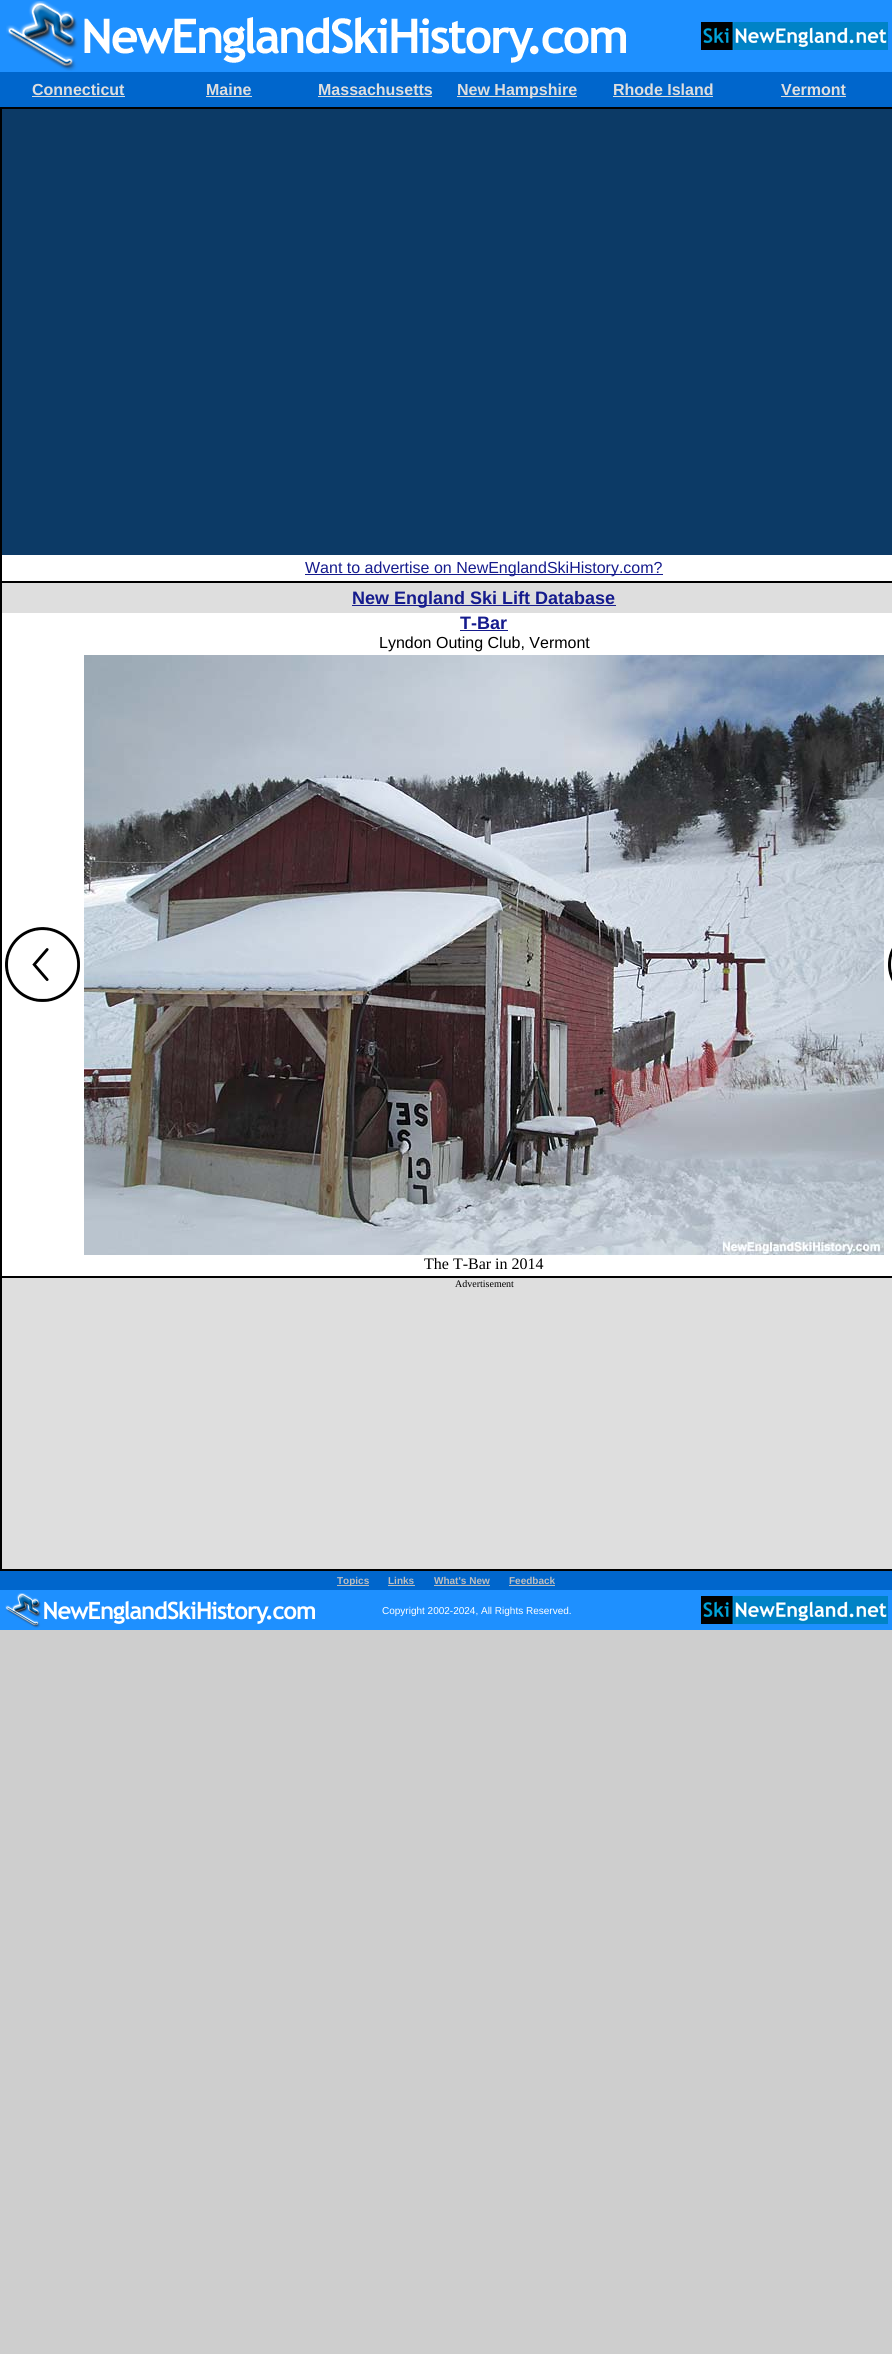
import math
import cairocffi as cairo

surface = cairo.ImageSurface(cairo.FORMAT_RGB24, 892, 2354)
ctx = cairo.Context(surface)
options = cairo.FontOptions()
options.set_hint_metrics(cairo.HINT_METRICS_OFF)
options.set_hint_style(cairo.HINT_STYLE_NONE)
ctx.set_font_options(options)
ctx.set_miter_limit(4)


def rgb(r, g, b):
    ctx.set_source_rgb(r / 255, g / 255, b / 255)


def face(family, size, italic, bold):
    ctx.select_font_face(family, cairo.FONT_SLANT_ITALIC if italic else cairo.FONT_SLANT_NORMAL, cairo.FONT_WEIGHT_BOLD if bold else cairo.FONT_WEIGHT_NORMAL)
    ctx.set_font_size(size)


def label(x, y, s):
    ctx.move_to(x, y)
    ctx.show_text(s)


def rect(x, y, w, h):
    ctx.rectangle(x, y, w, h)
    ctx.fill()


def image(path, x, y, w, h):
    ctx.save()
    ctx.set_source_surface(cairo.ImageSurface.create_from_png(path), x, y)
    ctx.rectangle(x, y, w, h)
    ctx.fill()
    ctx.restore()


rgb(206, 206, 206)
ctx.paint()
rgb(30, 144, 255)
rect(0, 0, 892, 72)
image('image0.png', 6, 1, 620, 70)
image('image1.png', 701, 22, 187, 28)
rgb(0, 102, 204)
rect(0, 72, 892, 35)
face('Liberation Sans', 16, 0, 1)
rgb(222, 222, 222)
label(32, 95, 'Connecticut')
rect(32, 96, 93, 1)
label(206, 95, 'Maine')
rect(206, 96, 46, 1)
label(318, 95, 'Massachusetts')
rect(318, 96, 114, 1)
rect(457, 96, 120, 1)
label(457, 95, 'New Hampshire')
label(613, 95, 'Rhode Island')
rect(613, 96, 100, 1)
label(781, 95, 'Vermont')
rect(781, 96, 65, 1)
ctx.rectangle(0.5, 107.5, 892, 1463)
rgb(0, 0, 0)
ctx.set_line_width(1)
ctx.stroke()
rgb(12, 58, 102)
rect(2, 109, 890, 446)
ctx.rectangle(1.5, 108.5, 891, 473)
rgb(0, 0, 0)
ctx.stroke()
rgb(255, 255, 255)
rect(2, 555, 890, 26)
rgb(21, 27, 141)
rect(305, 574, 358, 1)
face('Liberation Sans', 16, 0, 0)
label(305, 573, 'Want to advertise on NewEnglandSkiHistory.com?')
rgb(255, 255, 255)
rect(2, 613, 890, 663)
ctx.rectangle(1.5, 582.5, 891, 694)
rgb(0, 0, 0)
ctx.stroke()
rgb(222, 222, 222)
rect(2, 583, 890, 30)
rgb(21, 27, 141)
rect(352, 605, 264, 1)
face('Liberation Sans', 18, 0, 1)
label(352, 604, 'New England Ski Lift Database')
label(460, 629, 'T-Bar')
rect(460, 630, 48, 1)
face('Liberation Sans', 16, 0, 0)
rgb(0, 0, 0)
label(379, 648, 'Lyndon Outing Club, Vermont')
image('image2.png', 5, 927, 75, 75)
image('image3.png', 888, 948, 4, 34)
image('image4.png', 84, 655, 800, 600)
face('Liberation Serif', 16, 0, 0)
label(424, 1269, 'The T-Bar in 2014')
rgb(222, 222, 222)
ctx.rectangle(1.5, 1277.5, 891, 292)
ctx.fill_preserve()
rgb(0, 0, 0)
ctx.stroke()
face('Liberation Serif', 10, 0, 0)
label(455, 1287, 'Advertisement')
rgb(0, 102, 204)
rect(0, 1571, 892, 19)
rgb(190, 190, 190)
rect(337, 1585, 32, 1)
face('Liberation Sans', 10, 0, 1)
label(337, 1584, 'Topics')
label(388, 1584, 'Links')
rect(388, 1585, 27, 1)
label(434, 1584, 'What\'s New')
rect(434, 1585, 56, 1)
label(509, 1584, 'Feedback')
rect(509, 1585, 46, 1)
rgb(30, 144, 255)
rect(0, 1590, 892, 40)
image('image5.png', 5, 1593, 310, 35)
face('Liberation Sans', 10, 0, 0)
rgb(255, 255, 255)
label(382, 1614, 'Copyright 2002-2024, All Rights Reserved.')
image('image1.png', 701, 1596, 187, 28)
surface.write_to_png('render.png')
